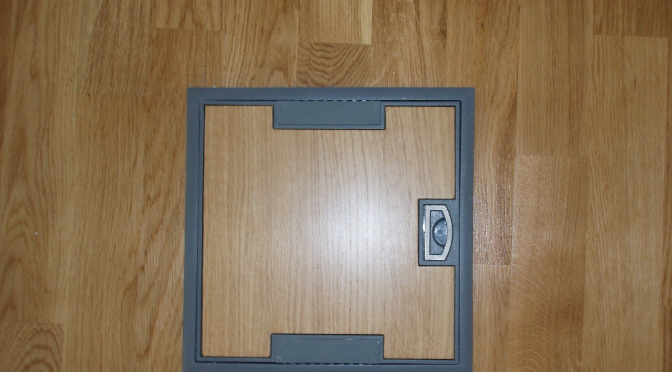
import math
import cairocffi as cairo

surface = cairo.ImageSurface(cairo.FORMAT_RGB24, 672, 372)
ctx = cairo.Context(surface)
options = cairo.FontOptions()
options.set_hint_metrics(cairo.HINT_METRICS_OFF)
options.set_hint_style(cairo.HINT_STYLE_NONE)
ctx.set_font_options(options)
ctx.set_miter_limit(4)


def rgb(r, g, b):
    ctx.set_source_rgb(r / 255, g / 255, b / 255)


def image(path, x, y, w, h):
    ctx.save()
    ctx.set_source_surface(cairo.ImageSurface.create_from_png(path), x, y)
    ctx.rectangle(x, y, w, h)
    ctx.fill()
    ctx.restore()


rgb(255, 255, 255)
ctx.paint()
image('image0.png', 0, 0, 672, 372)
surface.write_to_png('render.png')
